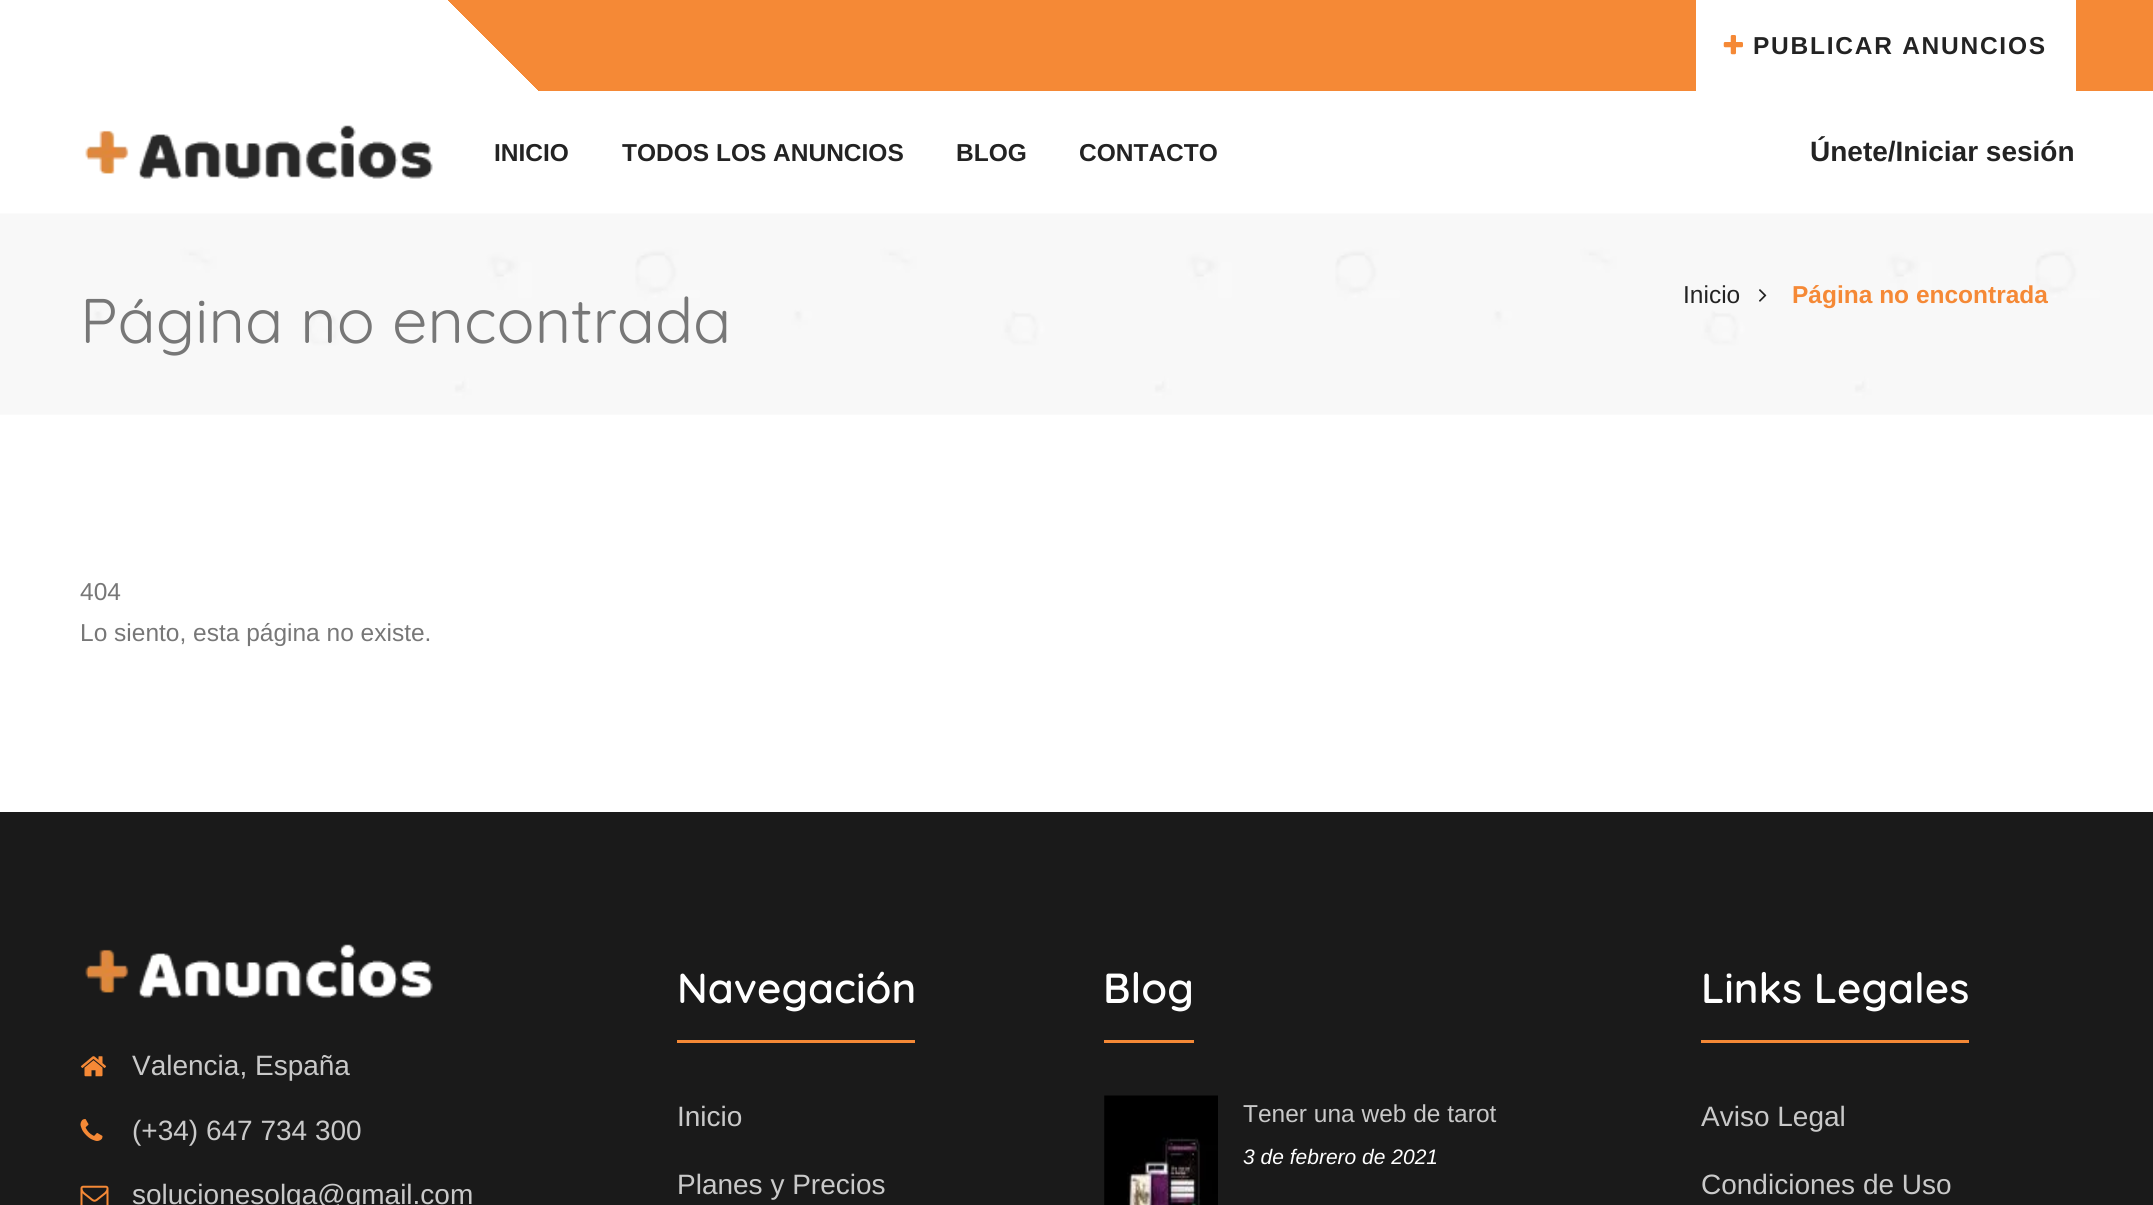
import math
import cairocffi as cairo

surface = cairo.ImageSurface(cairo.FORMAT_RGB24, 2153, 1205)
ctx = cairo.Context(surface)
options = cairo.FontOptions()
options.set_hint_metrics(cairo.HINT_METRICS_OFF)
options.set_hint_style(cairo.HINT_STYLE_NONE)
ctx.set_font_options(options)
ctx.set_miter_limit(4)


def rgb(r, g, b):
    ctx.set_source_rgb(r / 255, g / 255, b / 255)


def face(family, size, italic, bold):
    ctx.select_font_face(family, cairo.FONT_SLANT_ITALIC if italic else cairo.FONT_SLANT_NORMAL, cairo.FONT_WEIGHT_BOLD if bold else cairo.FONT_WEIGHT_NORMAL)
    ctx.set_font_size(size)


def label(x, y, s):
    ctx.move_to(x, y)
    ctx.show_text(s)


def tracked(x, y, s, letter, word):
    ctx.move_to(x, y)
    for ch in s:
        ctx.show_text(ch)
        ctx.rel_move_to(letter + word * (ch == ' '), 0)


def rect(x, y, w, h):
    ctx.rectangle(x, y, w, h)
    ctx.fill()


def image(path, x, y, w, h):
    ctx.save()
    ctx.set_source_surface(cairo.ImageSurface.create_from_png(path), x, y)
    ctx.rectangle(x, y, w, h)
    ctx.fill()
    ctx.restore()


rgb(255, 255, 255)
ctx.paint()
gradient = cairo.LinearGradient(516, 607, 1638, -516)
gradient.add_color_stop_rgba(0.24, 1, 1, 1, 1)
gradient.add_color_stop_rgba(0.24, 0.961, 0.537, 0.212, 1)
ctx.set_source(gradient)
rect(448, 0, 1705, 91)
rgb(255, 255, 255)
rect(1696, 0, 380, 91)
image('image0.png', 1723, 35, 20, 20)
face('Liberation Sans', 24.5, 0, 1)
rgb(35, 35, 35)
tracked(1753, 54, 'PUBLICAR ANUNCIOS', 1.75, 0)
image('image1.png', 85, 125, 348, 54)
label(494, 161, 'INICIO')
label(622, 161, 'TODOS LOS ANUNCIOS')
label(956, 161, 'BLOG')
label(1079, 161, 'CONTACTO')
face('Liberation Sans', 28, 0, 1)
label(1810, 161, 'Únete/Iniciar sesión')
image('image2.png', 0, 213, 2153, 202)
face('Quicksand', 63, 0, 0)
rgb(119, 119, 119)
label(80, 343, 'Página no encontrada')
face('Liberation Sans', 24.5, 0, 0)
rgb(35, 35, 35)
label(1683, 303, 'Inicio')
image('image3.png', 1759, 289, 8, 13)
face('Liberation Sans', 24.5, 0, 1)
rgb(245, 137, 54)
label(1792, 303, 'Página no encontrada')
face('Liberation Sans', 24.5, 0, 0)
rgb(119, 119, 119)
label(80, 600, '404')
label(80, 641, 'Lo siento, esta página no existe.')
rgb(26, 26, 26)
rect(0, 812, 2153, 393)
image('image4.png', 85, 944, 348, 54)
image('image5.png', 80, 1056, 27, 21)
face('Liberation Sans', 28, 0, 0)
rgb(201, 201, 201)
label(132, 1075, 'Valencia, España')
image('image6.png', 80, 1119, 23, 22)
label(132, 1140, '(+34) 647 734 300')
image('image7.png', 80, 1185, 29, 20)
label(132, 1204, 'solucionesolga@gmail.com')
rgb(245, 137, 54)
rect(677, 1040, 238, 3)
face('Quicksand SemiBold', 42, 0, 0)
rgb(255, 255, 255)
label(677, 1003, 'Navegación')
face('Liberation Sans', 28, 0, 0)
rgb(201, 201, 201)
label(677, 1126, 'Inicio')
label(677, 1194, 'Planes y Precios')
rgb(245, 137, 54)
rect(1104, 1040, 90, 3)
face('Quicksand SemiBold', 42, 0, 0)
rgb(255, 255, 255)
label(1103, 1003, 'Blog')
image('image8.png', 1104, 1095, 114, 110)
face('Liberation Sans', 24.5, 0, 0)
rgb(201, 201, 201)
label(1243, 1122, 'Tener una web de tarot')
face('Liberation Sans', 21, 1, 0)
rgb(255, 255, 255)
label(1243, 1164, '3 de febrero de 2021')
rgb(245, 137, 54)
rect(1701, 1040, 268, 3)
face('Quicksand SemiBold', 42, 0, 0)
rgb(255, 255, 255)
label(1701, 1003, 'Links Legales')
face('Liberation Sans', 28, 0, 0)
rgb(201, 201, 201)
label(1701, 1126, 'Aviso Legal')
label(1701, 1194, 'Condiciones de Uso')
surface.write_to_png('render.png')
